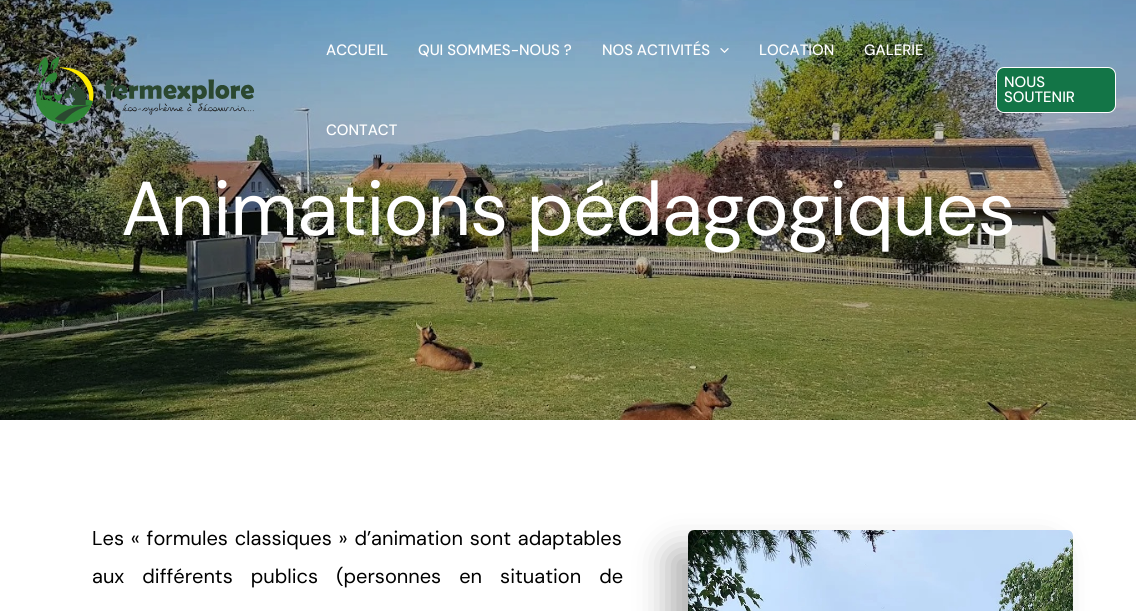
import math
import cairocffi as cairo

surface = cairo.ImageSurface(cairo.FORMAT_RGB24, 1136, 611)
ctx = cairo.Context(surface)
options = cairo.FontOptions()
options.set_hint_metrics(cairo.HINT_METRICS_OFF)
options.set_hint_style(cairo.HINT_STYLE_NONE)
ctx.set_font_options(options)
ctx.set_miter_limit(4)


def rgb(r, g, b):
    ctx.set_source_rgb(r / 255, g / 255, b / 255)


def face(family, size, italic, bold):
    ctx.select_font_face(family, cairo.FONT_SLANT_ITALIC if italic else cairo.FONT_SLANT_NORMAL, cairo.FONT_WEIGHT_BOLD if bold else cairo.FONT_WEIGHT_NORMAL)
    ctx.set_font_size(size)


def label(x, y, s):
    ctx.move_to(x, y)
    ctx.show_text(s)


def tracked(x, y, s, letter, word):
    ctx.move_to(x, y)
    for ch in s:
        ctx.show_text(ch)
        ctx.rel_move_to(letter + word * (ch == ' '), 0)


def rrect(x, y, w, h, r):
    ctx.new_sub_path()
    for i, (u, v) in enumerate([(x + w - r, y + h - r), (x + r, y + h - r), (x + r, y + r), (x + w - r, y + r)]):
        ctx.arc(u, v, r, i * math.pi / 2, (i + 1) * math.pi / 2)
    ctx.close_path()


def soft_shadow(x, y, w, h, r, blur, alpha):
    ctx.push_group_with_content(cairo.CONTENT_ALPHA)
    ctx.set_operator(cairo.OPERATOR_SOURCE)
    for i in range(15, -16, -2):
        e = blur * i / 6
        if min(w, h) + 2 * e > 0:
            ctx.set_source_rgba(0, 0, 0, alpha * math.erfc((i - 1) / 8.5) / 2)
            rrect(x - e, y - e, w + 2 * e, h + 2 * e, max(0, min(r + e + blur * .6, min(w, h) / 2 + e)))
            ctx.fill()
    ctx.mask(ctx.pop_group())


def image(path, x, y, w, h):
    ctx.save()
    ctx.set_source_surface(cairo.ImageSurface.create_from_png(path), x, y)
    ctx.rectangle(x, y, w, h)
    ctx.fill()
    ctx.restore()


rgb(255, 255, 255)
ctx.paint()
image('image2.png', 0, 0, 1136, 420)
image('image0.png', 35, 56, 220, 68)
face('DM Sans Medium', 15, 0, 0)
rgb(255, 255, 255)
label(326, 55, 'ACCUEIL')
label(418, 55, 'QUI SOMMES-NOUS ?')
label(602, 55, 'NOS ACTIVITÉS')
image('image1.png', 720, 48, 9, 5)
label(759, 55, 'LOCATION')
label(864, 55, 'GALERIE')
label(326, 135, 'CONTACT')
rgb(19, 117, 71)
rrect(996.5, 67.5, 119, 45, 7.5)
ctx.fill_preserve()
rgb(255, 255, 255)
ctx.set_line_width(1)
ctx.stroke()
label(1004, 87, 'NOUS')
label(1004, 102, 'SOUTENIR')
face('DM Sans', 76, 0, 0)
tracked(121, 235, 'Animations pédagogiques', -1, 0)
face('DM Sans', 20, 0, 0)
rgb(0, 0, 0)
tracked(92, 545, 'Les « formules classiques » d’animation sont adaptables', 0, 1.5)
tracked(92, 583, 'aux différents publics (personnes en situation de', 0, 12.75)
rgb(0, 0, 0)
soft_shadow(668, 550, 385, 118, 6, 17, 0.3)
image('image3.png', 688, 530, 385, 81)
surface.write_to_png('render.png')
